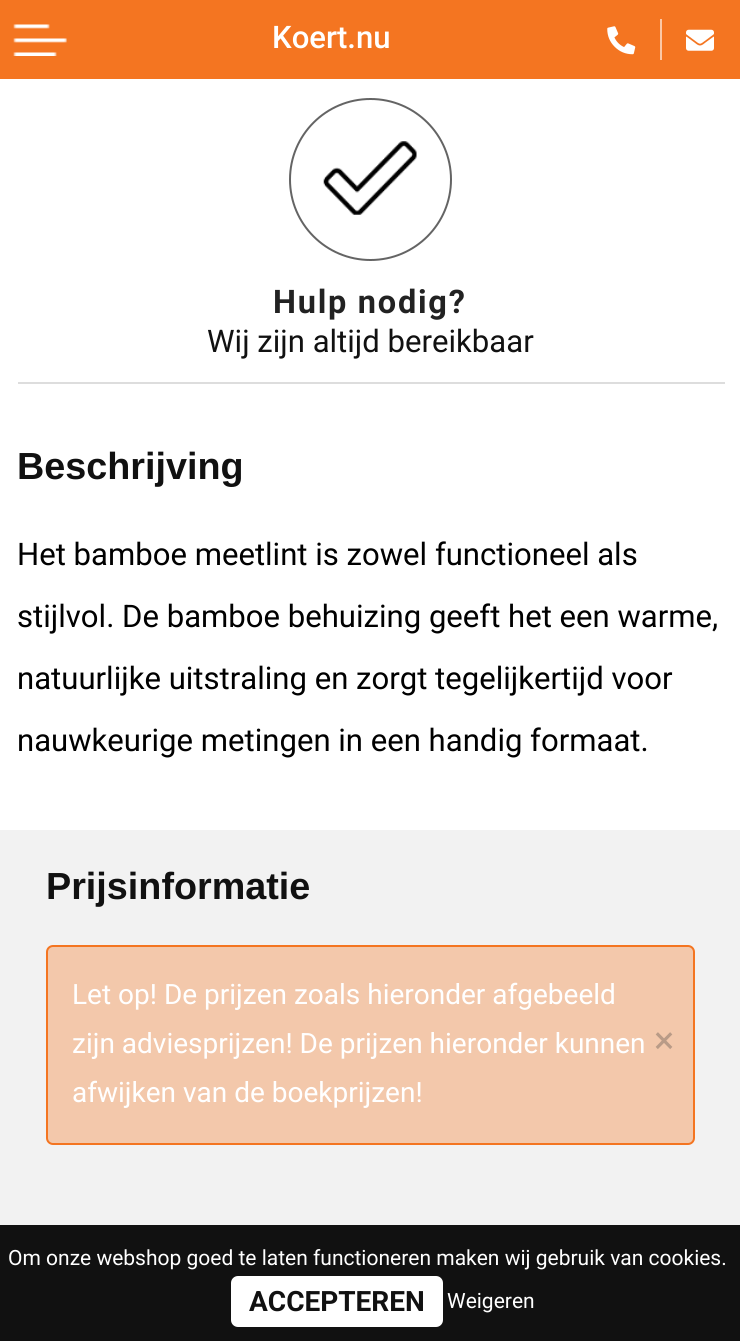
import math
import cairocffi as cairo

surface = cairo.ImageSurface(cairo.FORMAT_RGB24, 740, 1341)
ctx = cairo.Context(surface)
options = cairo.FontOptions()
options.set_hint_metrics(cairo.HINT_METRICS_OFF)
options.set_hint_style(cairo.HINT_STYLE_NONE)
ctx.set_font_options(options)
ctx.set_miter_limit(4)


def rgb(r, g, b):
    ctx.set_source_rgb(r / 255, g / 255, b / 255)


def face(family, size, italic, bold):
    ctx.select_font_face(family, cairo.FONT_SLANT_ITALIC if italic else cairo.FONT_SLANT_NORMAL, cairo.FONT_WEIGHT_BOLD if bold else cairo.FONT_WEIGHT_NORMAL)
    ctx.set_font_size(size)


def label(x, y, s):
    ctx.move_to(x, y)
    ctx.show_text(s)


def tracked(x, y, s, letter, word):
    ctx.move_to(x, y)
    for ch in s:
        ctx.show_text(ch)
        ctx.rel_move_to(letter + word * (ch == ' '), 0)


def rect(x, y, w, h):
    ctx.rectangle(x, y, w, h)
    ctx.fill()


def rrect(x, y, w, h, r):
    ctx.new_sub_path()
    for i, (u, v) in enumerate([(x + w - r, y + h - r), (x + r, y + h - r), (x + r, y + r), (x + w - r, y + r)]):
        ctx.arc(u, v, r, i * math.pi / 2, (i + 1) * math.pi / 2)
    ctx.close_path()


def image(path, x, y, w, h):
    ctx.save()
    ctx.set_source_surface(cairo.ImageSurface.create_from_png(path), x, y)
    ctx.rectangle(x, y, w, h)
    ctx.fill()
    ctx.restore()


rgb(255, 255, 255)
ctx.paint()
rgb(244, 117, 33)
rect(0, 0, 740, 79)
image('image0.png', 13, 24, 54, 32)
face('Roboto Medium', 31.1, 0, 0)
rgb(255, 255, 255)
label(272, 48, 'Koert.nu')
image('image1.png', 607, 26, 29, 29)
rgb(251, 200, 166)
rect(660, 19, 2, 41)
image('image2.png', 686, 29, 28, 22)
ctx.arc(370.5, 179.5, 80.5, 0, 2 * math.pi)
rgb(100, 100, 100)
ctx.stroke()
image('image3.png', 323, 141, 94, 74)
face('Roboto', 32.5, 0, 1)
rgb(34, 34, 34)
tracked(273, 313, 'Hulp nodig?', 1.75, 0)
face('Roboto', 31.1, 0, 0)
rgb(17, 17, 17)
label(207, 352, 'Wij zijn altijd bereikbaar')
rgb(221, 221, 221)
rect(18, 382, 707, 2)
face('Liberation Sans', 37.75, 0, 1)
rgb(17, 17, 17)
label(17, 479, 'Beschrijving')
face('Roboto', 31.1, 0, 0)
rgb(0, 0, 0)
label(17, 565, 'Het bamboe meetlint is zowel functioneel als')
label(17, 627, 'stijlvol. De bamboe behuizing geeft het een warme,')
label(17, 689, 'natuurlijke uitstraling en zorgt tegelijkertijd voor')
label(17, 751, 'nauwkeurige metingen in een handig formaat.')
rgb(242, 242, 242)
rect(0, 830, 740, 395)
face('Liberation Sans', 37.75, 0, 1)
rgb(17, 17, 17)
label(46, 899, 'Prijsinformatie')
rgb(243, 200, 171)
rrect(47, 946, 647, 198, 6)
ctx.fill_preserve()
rgb(244, 117, 33)
ctx.stroke()
face('Roboto', 28, 0, 0)
rgb(255, 255, 255)
label(72, 1004, 'Let op! De prijzen zoals hieronder afgebeeld')
label(72, 1053, 'zijn adviesprijzen! De prijzen hieronder kunnen')
face('Roboto', 38, 0, 0)
rgb(185, 155, 135)
label(654, 1053, '×')
face('Roboto', 28, 0, 0)
rgb(255, 255, 255)
label(72, 1102, 'afwijken van de boekprijzen!')
rgb(17, 17, 17)
rect(0, 1225, 740, 116)
face('Roboto', 21, 0, 0)
rgb(255, 255, 255)
label(8, 1265, 'Om onze webshop goed te laten functioneren maken wij gebruik van cookies.')
rrect(231, 1276, 212, 51, 7)
ctx.fill()
face('Roboto', 28, 0, 1)
rgb(17, 17, 17)
label(249, 1311, 'ACCEPTEREN')
face('Roboto', 21, 0, 0)
rgb(255, 255, 255)
label(447, 1308, 'Weigeren')
surface.write_to_png('render.png')
